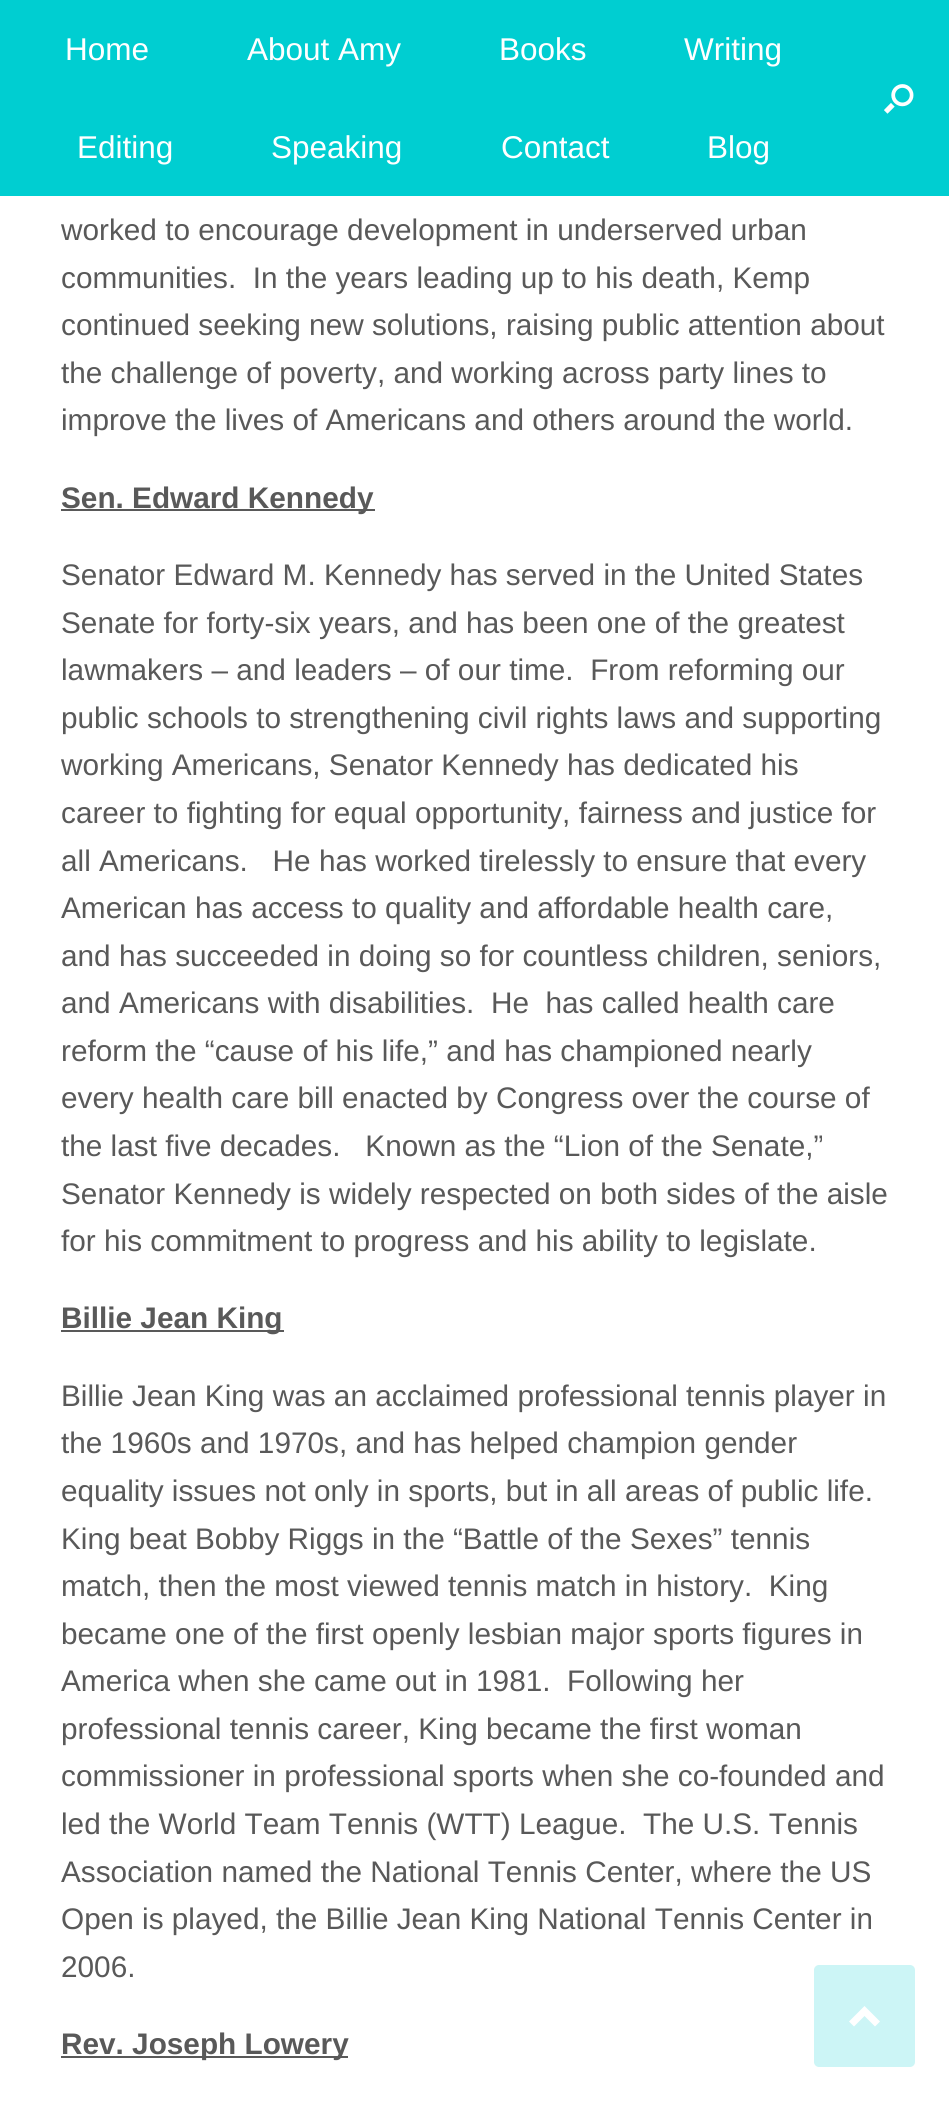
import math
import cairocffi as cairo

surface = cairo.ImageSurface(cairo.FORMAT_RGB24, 949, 2101)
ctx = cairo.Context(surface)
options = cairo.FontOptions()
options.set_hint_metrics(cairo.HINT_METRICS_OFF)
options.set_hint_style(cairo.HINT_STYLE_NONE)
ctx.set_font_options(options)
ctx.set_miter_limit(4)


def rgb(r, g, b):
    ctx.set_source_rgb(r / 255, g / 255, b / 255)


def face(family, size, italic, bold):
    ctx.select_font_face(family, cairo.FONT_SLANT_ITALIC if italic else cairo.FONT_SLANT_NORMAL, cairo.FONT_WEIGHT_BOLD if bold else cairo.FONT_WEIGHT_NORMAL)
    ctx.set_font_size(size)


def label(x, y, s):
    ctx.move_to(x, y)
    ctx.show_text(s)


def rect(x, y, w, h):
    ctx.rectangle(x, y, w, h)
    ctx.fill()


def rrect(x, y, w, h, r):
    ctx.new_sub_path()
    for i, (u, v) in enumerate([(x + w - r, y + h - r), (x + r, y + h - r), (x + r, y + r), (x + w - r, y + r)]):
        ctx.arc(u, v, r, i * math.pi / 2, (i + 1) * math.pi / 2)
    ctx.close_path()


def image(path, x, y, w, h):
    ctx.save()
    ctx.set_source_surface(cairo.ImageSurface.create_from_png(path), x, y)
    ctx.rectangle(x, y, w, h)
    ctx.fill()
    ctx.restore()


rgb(255, 255, 255)
ctx.paint()
rgb(0, 206, 209)
rect(0, 0, 949, 196)
face('Liberation Sans', 31.5, 0, 0)
rgb(255, 255, 255)
label(65, 60, 'Home')
label(247, 60, 'About Amy')
label(499, 60, 'Books')
label(684, 60, 'Writing')
label(77, 158, 'Editing')
label(271, 158, 'Speaking')
label(501, 158, 'Contact')
label(707, 158, 'Blog')
image('image0.png', 884, 84, 30, 30)
face('Liberation Sans', 29.75, 0, 0)
rgb(89, 89, 89)
label(61, 240, 'worked to encourage development in underserved urban')
label(61, 288, 'communities.  In the years leading up to his death, Kemp')
label(61, 335, 'continued seeking new solutions, raising public attention about')
label(61, 383, 'the challenge of poverty, and working across party lines to')
label(61, 430, 'improve the lives of Americans and others around the world.')
rect(61, 509, 314, 2)
face('Liberation Sans', 29.75, 0, 1)
label(61, 508, 'Sen. Edward Kennedy')
face('Liberation Sans', 29.75, 0, 0)
label(61, 585, 'Senator Edward M. Kennedy has served in the United States')
label(61, 633, 'Senate for forty-six years, and has been one of the greatest')
label(61, 680, 'lawmakers – and leaders – of our time.  From reforming our')
label(61, 728, 'public schools to strengthening civil rights laws and supporting')
label(61, 775, 'working Americans, Senator Kennedy has dedicated his')
label(61, 823, 'career to fighting for equal opportunity, fairness and justice for')
label(61, 871, 'all Americans.   He has worked tirelessly to ensure that every')
label(61, 918, 'American has access to quality and affordable health care,')
label(61, 966, 'and has succeeded in doing so for countless children, seniors,')
label(61, 1013, 'and Americans with disabilities.  He  has called health care')
label(61, 1061, 'reform the “cause of his life,” and has championed nearly')
label(61, 1108, 'every health care bill enacted by Congress over the course of')
label(61, 1156, 'the last five decades.   Known as the “Lion of the Senate,”')
label(61, 1204, 'Senator Kennedy is widely respected on both sides of the aisle')
label(61, 1251, 'for his commitment to progress and his ability to legislate.')
rect(61, 1330, 223, 2)
face('Liberation Sans', 29.75, 0, 1)
label(61, 1328, 'Billie Jean King')
face('Liberation Sans', 29.75, 0, 0)
label(61, 1406, 'Billie Jean King was an acclaimed professional tennis player in')
label(61, 1453, 'the 1960s and 1970s, and has helped champion gender')
label(61, 1501, 'equality issues not only in sports, but in all areas of public life.')
label(61, 1549, 'King beat Bobby Riggs in the “Battle of the Sexes” tennis')
label(61, 1596, 'match, then the most viewed tennis match in history.  King')
label(61, 1644, 'became one of the first openly lesbian major sports figures in')
label(61, 1691, 'America when she came out in 1981.')
label(567, 1691, 'Following her')
label(61, 1739, 'professional tennis career, King became the first woman')
label(61, 1786, 'commissioner in professional sports when she co-founded and')
label(61, 1834, 'led the World Team Tennis (WTT) League.  The U.S. Tennis')
label(61, 1882, 'Association named the National Tennis Center, where the US')
label(61, 1929, 'Open is played, the Billie Jean King National Tennis Center in')
label(61, 1977, '2006.')
rect(61, 2056, 287, 2)
face('Liberation Sans', 29.75, 0, 1)
label(61, 2054, 'Rev. Joseph Lowery')
rgb(204, 245, 246)
rrect(814, 1965, 101, 102, 5)
ctx.fill()
rgb(255, 255, 255)
ctx.new_path()
ctx.move_to(880, 2021.5)
ctx.line_to(864.5, 2006)
ctx.line_to(849, 2021.5)
ctx.line_to(854, 2026.5)
ctx.line_to(864.5, 2016)
ctx.line_to(875, 2026.5)
ctx.close_path()
ctx.fill()
surface.write_to_png('render.png')
